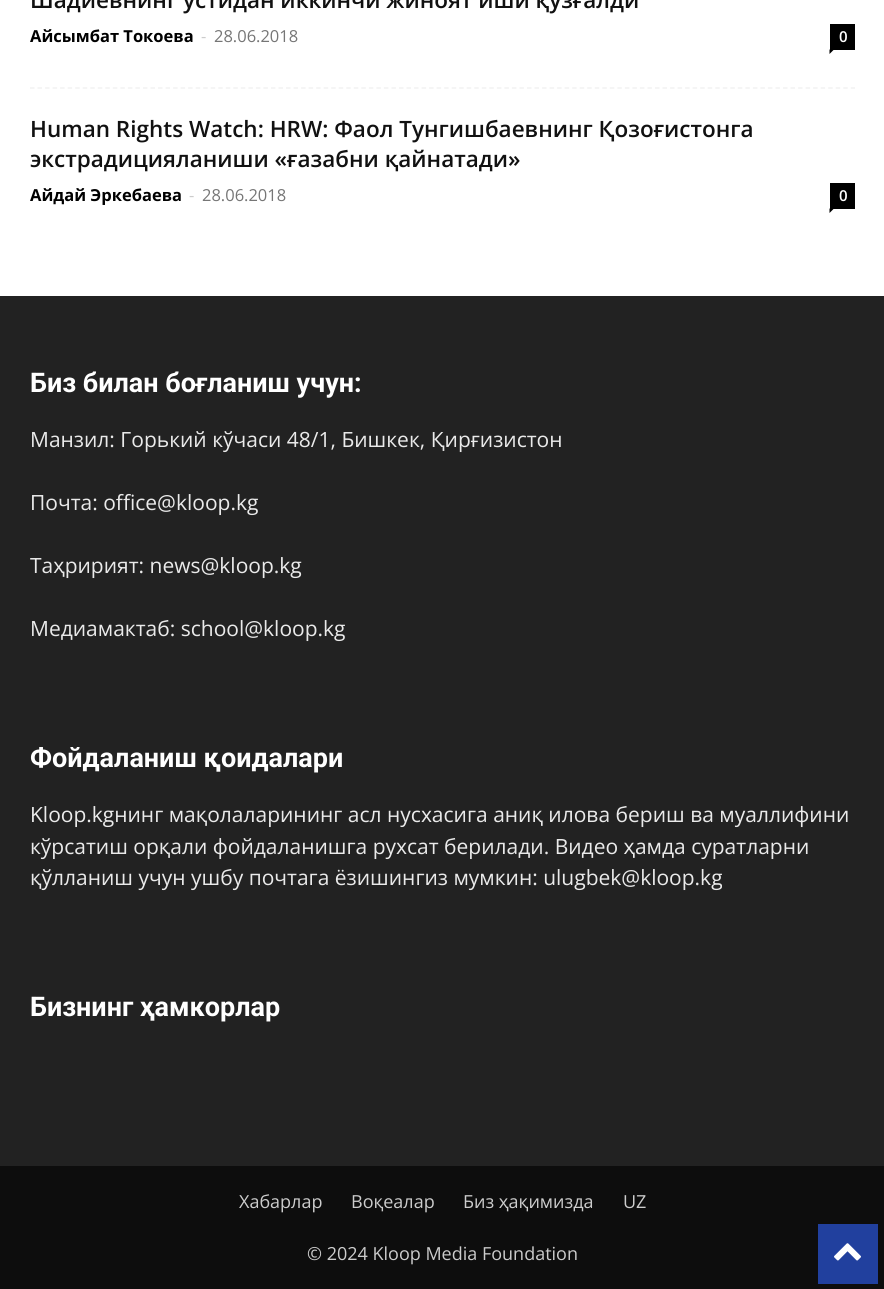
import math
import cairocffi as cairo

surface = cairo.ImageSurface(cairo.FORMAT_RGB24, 884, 1289)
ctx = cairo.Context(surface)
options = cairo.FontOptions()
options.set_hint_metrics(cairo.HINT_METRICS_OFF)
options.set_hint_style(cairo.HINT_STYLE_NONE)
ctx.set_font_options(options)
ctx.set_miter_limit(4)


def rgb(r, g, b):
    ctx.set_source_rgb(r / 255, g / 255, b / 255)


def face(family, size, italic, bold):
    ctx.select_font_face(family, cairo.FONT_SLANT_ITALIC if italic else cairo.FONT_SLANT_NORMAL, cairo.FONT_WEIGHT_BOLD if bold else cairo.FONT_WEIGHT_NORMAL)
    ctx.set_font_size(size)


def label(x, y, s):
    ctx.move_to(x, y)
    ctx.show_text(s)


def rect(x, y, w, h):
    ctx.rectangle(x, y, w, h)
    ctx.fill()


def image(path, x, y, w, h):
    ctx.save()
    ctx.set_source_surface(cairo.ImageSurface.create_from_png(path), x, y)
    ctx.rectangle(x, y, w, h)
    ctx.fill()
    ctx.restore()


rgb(255, 255, 255)
ctx.paint()
ctx.new_path()
ctx.move_to(30, 88)
ctx.line_to(855, 88)
rgb(242, 242, 242)
ctx.set_line_width(1.5)
ctx.set_dash([4.5, 3.03])
ctx.stroke()
face('Open Sans SemiBold', 22.5, 0, 0)
rgb(17, 17, 17)
label(30, 8, 'Шадиевнинг устидан иккинчи жиноят иши қўзғалди')
face('Open Sans', 16.5, 0, 1)
rgb(0, 0, 0)
label(30, 42, 'Айсымбат Токоева')
face('Open Sans', 16.5, 0, 0)
rgb(204, 204, 204)
label(201, 42, '-')
rgb(118, 118, 118)
label(214, 42, '28.06.2018')
rgb(0, 0, 0)
rect(830, 24, 25, 26)
face('Open Sans SemiBold', 15, 0, 0)
rgb(255, 255, 255)
label(839, 42, '0')
rgb(0, 0, 0)
ctx.new_path()
ctx.move_to(829.5, 49.5)
ctx.line_to(834, 49.5)
ctx.line_to(829.5, 54)
ctx.close_path()
ctx.fill()
face('Open Sans SemiBold', 22.5, 0, 0)
rgb(17, 17, 17)
label(30, 137, 'Human Rights Watch: HRW: Фаол Тунгишбаевнинг Қозоғистонга')
label(30, 167, 'экстрадицияланиши «ғазабни қайнатади»')
face('Open Sans', 16.5, 0, 1)
rgb(0, 0, 0)
label(30, 201, 'Айдай Эркебаева')
face('Open Sans', 16.5, 0, 0)
rgb(204, 204, 204)
label(189, 201, '-')
rgb(118, 118, 118)
label(202, 201, '28.06.2018')
rgb(0, 0, 0)
rect(830, 183, 25, 26)
face('Open Sans SemiBold', 15, 0, 0)
rgb(255, 255, 255)
label(839, 201, '0')
rgb(0, 0, 0)
ctx.new_path()
ctx.move_to(829.5, 208.5)
ctx.line_to(834, 208.5)
ctx.line_to(829.5, 213)
ctx.close_path()
ctx.fill()
rgb(34, 34, 34)
rect(0, 296, 884, 870)
face('Roboto', 27, 0, 1)
rgb(255, 255, 255)
label(30, 392, 'Биз билан боғланиш учун:')
face('Open Sans', 21, 0, 0)
rgb(234, 234, 234)
label(30, 447, 'Манзил: Горький кўчаси 48/1, Бишкек, Қирғизистон')
label(30, 510, 'Почта: office@kloop.kg')
label(30, 573, 'Таҳририят: news@kloop.kg')
label(30, 636, 'Медиамактаб: school@kloop.kg')
face('Roboto', 27, 0, 1)
rgb(255, 255, 255)
label(30, 767, 'Фойдаланиш қоидалари')
face('Open Sans', 21, 0, 0)
rgb(234, 234, 234)
label(30, 822, 'Kloop.kgнинг мақолаларининг асл нусхасига аниқ илова бериш ва муаллифини')
label(30, 854, 'кўрсатиш орқали фойдаланишга рухсат берилади. Видео ҳамда суратларни')
label(30, 885, 'қўлланиш учун ушбу почтага ёзишингиз мумкин: ulugbek@kloop.kg')
face('Roboto', 27, 0, 1)
rgb(255, 255, 255)
label(30, 1016, 'Бизнинг ҳамкорлар')
rgb(13, 13, 13)
rect(0, 1166, 884, 123)
face('Open Sans', 18, 0, 0)
rgb(204, 204, 204)
label(239, 1208, 'Хабарлар')
label(351, 1208, 'Воқеалар')
label(463, 1208, 'Биз ҳақимизда')
label(623, 1208, 'UZ')
label(307, 1260, '© 2024 Kloop Media Foundation')
rgb(33, 64, 158)
rect(818, 1224, 60, 60)
image('image0.png', 834, 1243, 27, 18)
surface.write_to_png('render.png')
